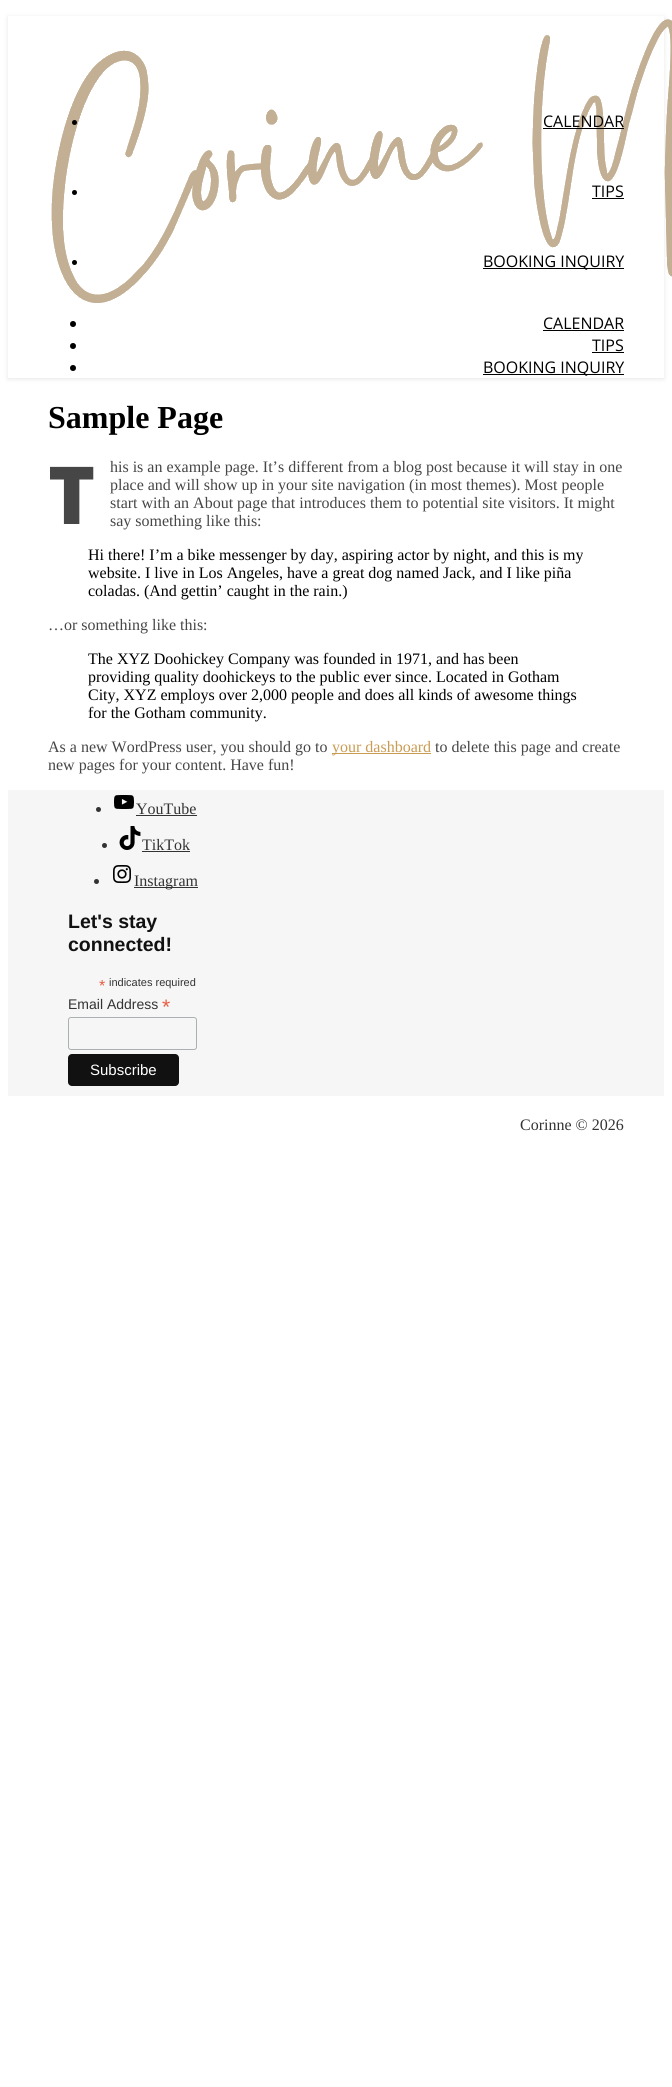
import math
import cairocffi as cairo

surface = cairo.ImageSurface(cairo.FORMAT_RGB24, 672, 2087)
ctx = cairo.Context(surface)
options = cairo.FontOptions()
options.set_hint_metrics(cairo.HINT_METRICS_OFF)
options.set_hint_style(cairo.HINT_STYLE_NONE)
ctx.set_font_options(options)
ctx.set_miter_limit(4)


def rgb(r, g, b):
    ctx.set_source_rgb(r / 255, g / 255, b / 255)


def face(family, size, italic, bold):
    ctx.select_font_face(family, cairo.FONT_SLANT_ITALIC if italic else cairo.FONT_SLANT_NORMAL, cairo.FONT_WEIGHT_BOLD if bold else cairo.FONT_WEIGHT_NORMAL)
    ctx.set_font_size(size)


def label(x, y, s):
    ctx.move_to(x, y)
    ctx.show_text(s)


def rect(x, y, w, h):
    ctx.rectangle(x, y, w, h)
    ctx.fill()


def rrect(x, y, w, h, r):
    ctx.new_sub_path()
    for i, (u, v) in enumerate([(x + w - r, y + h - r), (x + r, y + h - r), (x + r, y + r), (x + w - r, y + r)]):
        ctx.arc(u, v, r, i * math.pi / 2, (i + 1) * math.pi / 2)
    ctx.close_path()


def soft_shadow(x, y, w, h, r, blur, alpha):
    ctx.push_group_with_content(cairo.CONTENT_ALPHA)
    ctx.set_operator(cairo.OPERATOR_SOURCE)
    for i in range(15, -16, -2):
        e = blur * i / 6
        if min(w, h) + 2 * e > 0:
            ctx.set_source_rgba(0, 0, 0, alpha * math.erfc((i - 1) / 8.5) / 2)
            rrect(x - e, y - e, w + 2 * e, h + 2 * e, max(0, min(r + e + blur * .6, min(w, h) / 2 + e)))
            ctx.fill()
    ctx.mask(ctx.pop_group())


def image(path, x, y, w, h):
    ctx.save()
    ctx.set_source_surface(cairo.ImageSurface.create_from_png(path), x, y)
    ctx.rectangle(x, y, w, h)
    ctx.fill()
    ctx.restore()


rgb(255, 255, 255)
ctx.paint()
ctx.save()
ctx.set_fill_rule(cairo.FILL_RULE_EVEN_ODD)
ctx.new_path()
ctx.move_to(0, 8)
ctx.line_to(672, 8)
ctx.line_to(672, 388)
ctx.line_to(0, 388)
ctx.close_path()
ctx.move_to(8, 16)
ctx.line_to(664, 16)
ctx.line_to(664, 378)
ctx.line_to(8, 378)
ctx.close_path()
ctx.clip()
rgb(0, 0, 0)
soft_shadow(8, 17, 656, 362, 0, 2.5, 0.1)
ctx.restore()
image('image0.png', 51, 19, 621, 284)
rgb(0, 0, 0)
ctx.arc(74.5, 122.5, 2.5, 0, 2 * math.pi)
ctx.fill()
face('Open Sans', 16, 0, 0)
label(543, 127, 'CALENDAR')
rect(543, 128, 81, 1)
ctx.new_path()
ctx.arc(74.5, 192.5, 2.5, 0, 2 * math.pi)
ctx.fill()
label(592, 197, 'TIPS')
rect(592, 198, 32, 1)
ctx.new_path()
ctx.arc(74.5, 262.5, 2.5, 0, 2 * math.pi)
ctx.fill()
rect(483, 268, 141, 1)
label(483, 267, 'BOOKING INQUIRY')
ctx.new_path()
ctx.arc(73, 324, 3, 0, 2 * math.pi)
ctx.fill()
label(543, 329, 'CALENDAR')
rect(543, 330, 81, 1)
ctx.new_path()
ctx.arc(73, 346, 3, 0, 2 * math.pi)
ctx.fill()
label(592, 351, 'TIPS')
rect(592, 352, 32, 1)
ctx.new_path()
ctx.arc(73, 368, 3, 0, 2 * math.pi)
ctx.fill()
rect(483, 374, 141, 1)
label(483, 373, 'BOOKING INQUIRY')
face('Liberation Serif', 32, 0, 1)
label(48, 428, 'Sample Page')
face('Noto Sans Black', 80, 0, 0)
rgb(70, 70, 70)
label(48, 524, 'T')
face('Liberation Serif', 16, 0, 0)
label(110, 472, 'his is an example page. It’s different from a blog post because it will stay in one')
label(110, 490, 'place and will show up in your site navigation (in most themes). Most people')
label(110, 508, 'start with an About page that introduces them to potential site visitors. It might')
label(110, 526, 'say something like this:')
rgb(0, 0, 0)
label(88, 560, 'Hi there! I’m a bike messenger by day, aspiring actor by night, and this is my')
label(88, 578, 'website. I live in Los Angeles, have a great dog named Jack, and I like piña')
label(88, 596, 'coladas. (And gettin’ caught in the rain.)')
rgb(70, 70, 70)
label(48, 630, '…or something like this:')
rgb(0, 0, 0)
label(88, 664, 'The XYZ Doohickey Company was founded in 1971, and has been')
label(88, 682, 'providing quality doohickeys to the public ever since. Located in Gotham')
label(88, 700, 'City, XYZ employs over 2,000 people and does all kinds of awesome things')
label(88, 718, 'for the Gotham community.')
rgb(70, 70, 70)
label(48, 752, 'As a new WordPress user, you should go to')
rgb(202, 155, 82)
rect(332, 753, 99, 1)
label(332, 752, 'your dashboard')
rgb(70, 70, 70)
label(435, 752, 'to delete this page and create')
label(48, 770, 'new pages for your content. Have fun!')
rgb(246, 246, 246)
rect(8, 790, 656, 306)
rgb(51, 51, 51)
ctx.new_path()
ctx.arc(98.5, 809.5, 2.5, 0, 2 * math.pi)
ctx.fill()
image('image1.png', 114, 795, 20, 14)
label(136, 814, 'YouTube')
rect(136, 815, 61, 1)
ctx.new_path()
ctx.arc(104.5, 845.5, 2.5, 0, 2 * math.pi)
ctx.fill()
image('image2.png', 119, 826, 22, 24)
label(142, 850, 'TikTok')
rect(142, 851, 48, 1)
ctx.new_path()
ctx.arc(96.5, 881.5, 2.5, 0, 2 * math.pi)
ctx.fill()
image('image3.png', 113, 865, 18, 18)
rect(134, 887, 64, 1)
label(134, 886, 'Instagram')
face('Liberation Sans', 19.5, 0, 1)
rgb(17, 17, 17)
label(68, 928, 'Let\'s stay')
label(68, 951, 'connected!')
face('Liberation Sans', 16, 0, 0)
rgb(232, 92, 65)
label(99, 991, '*')
face('Liberation Sans', 11, 0, 0)
rgb(51, 51, 51)
label(109, 986, 'indicates required')
face('Liberation Sans', 14, 0, 0)
label(68, 1009, 'Email Address')
face('Liberation Sans', 21, 0, 0)
rgb(232, 92, 65)
label(162, 1014, '*')
rrect(68.5, 1017.5, 128, 32, 2.5)
rgb(171, 176, 178)
ctx.set_line_width(1)
ctx.stroke()
rgb(17, 17, 17)
rrect(68, 1054, 111, 32, 4)
ctx.fill()
face('Liberation Sans', 15, 0, 0)
rgb(255, 255, 255)
label(90, 1075, 'Subscribe')
face('Liberation Serif', 16, 0, 0)
rgb(51, 51, 51)
label(520, 1130, 'Corinne © 2026')
surface.write_to_png('render.png')
